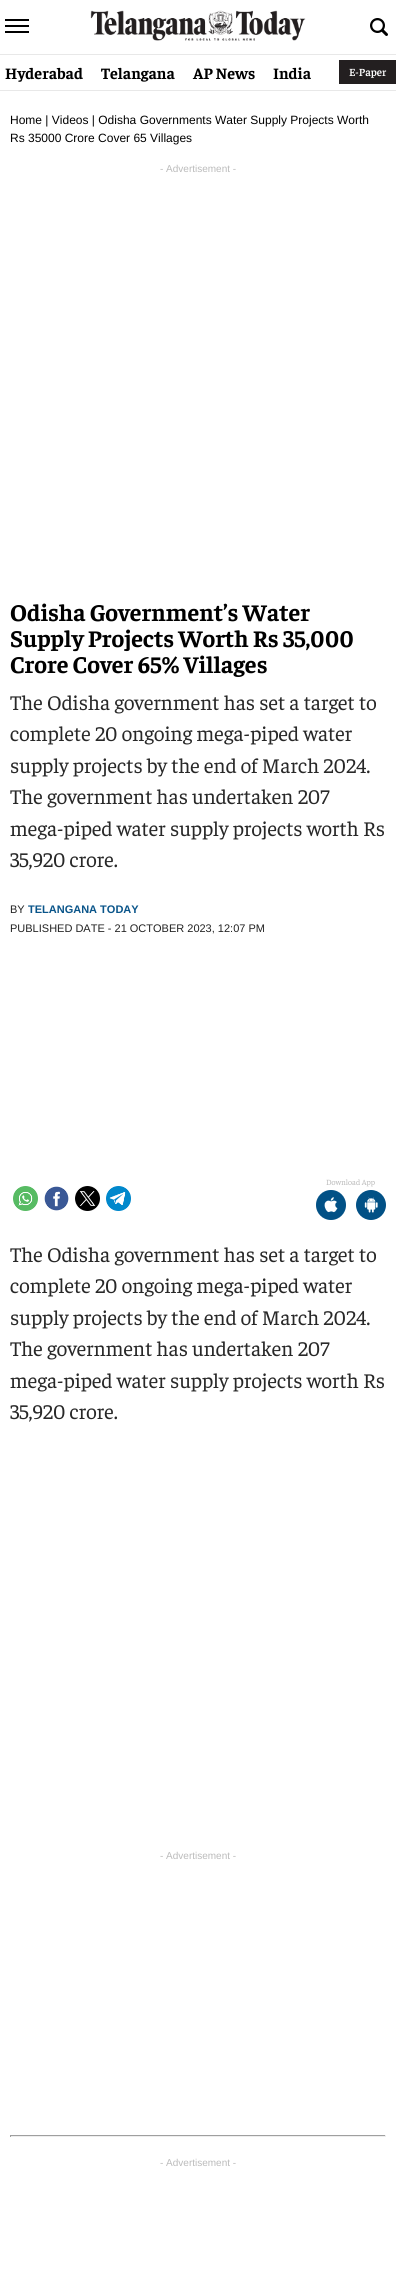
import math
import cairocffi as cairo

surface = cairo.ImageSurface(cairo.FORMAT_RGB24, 396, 2281)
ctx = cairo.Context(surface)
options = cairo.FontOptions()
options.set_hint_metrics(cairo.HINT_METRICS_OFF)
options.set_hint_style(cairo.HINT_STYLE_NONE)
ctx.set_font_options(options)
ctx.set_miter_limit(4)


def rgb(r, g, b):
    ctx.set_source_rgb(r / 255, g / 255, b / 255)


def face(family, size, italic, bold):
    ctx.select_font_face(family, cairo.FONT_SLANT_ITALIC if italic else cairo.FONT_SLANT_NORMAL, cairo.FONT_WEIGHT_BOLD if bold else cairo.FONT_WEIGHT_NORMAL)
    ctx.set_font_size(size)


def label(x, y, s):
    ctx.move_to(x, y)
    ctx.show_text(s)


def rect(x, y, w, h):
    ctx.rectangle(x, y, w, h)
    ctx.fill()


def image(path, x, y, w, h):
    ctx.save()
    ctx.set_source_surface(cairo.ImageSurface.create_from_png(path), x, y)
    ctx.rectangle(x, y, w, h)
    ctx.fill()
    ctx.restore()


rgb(255, 255, 255)
ctx.paint()
rgb(0, 0, 0)
rect(5, 19, 24, 2)
rect(5, 25, 24, 2)
rect(5, 31, 24, 2)
image('image0.png', 90, 10, 216, 31)
image('image1.png', 370, 18, 18, 18)
rgb(232, 232, 232)
rect(0, 54, 396, 1)
rect(0, 90, 396, 1)
face('Faustina', 16, 0, 1)
rgb(0, 0, 0)
label(5, 79, 'Hyderabad')
label(101, 79, 'Telangana')
label(193, 79, 'AP News')
label(273, 79, 'India')
rgb(35, 31, 32)
rect(339, 60, 57, 24)
face('Faustina SemiBold', 11, 0, 0)
rgb(255, 255, 255)
label(349, 76, 'E-Paper')
face('Liberation Sans', 12, 0, 0)
rgb(0, 0, 0)
label(10, 124, 'Home | Videos | Odisha Governments Water Supply Projects Worth')
label(10, 142, 'Rs 35000 Crore Cover 65 Villages')
face('Liberation Sans', 10, 0, 0)
rgb(187, 187, 187)
label(160, 172, '- Advertisement -')
face('Faustina', 24, 0, 1)
rgb(0, 0, 0)
label(10, 621, 'Odisha Government’s Water')
label(10, 647, 'Supply Projects Worth Rs 35,000')
label(10, 673, 'Crore Cover 65% Villages')
face('Faustina', 21, 0, 0)
rgb(40, 40, 40)
label(10, 710, 'The Odisha government has set a target to')
label(10, 741, 'complete 20 ongoing mega-piped water')
label(10, 773, 'supply projects by the end of March 2024.')
label(10, 804, 'The government has undertaken 207')
label(10, 836, 'mega-piped water supply projects worth Rs')
label(10, 867, '35,920 crore.')
face('Liberation Sans', 11, 0, 0)
rgb(34, 34, 34)
label(10, 913, 'BY')
face('Liberation Sans', 11, 0, 1)
rgb(10, 85, 138)
label(28, 913, 'TELANGANA TODAY')
face('Liberation Sans', 11, 0, 0)
rgb(34, 34, 34)
label(10, 932, 'PUBLISHED DATE - 21 OCTOBER 2023, 12:07 PM')
face('Faustina', 8, 0, 0)
rgb(187, 187, 187)
label(326, 1185, 'Download App')
image('image2.png', 316, 1190, 30, 30)
image('image3.png', 356, 1190, 30, 30)
image('image4.png', 13, 1186, 25, 25)
image('image5.png', 44, 1186, 25, 25)
image('image6.png', 75, 1186, 25, 25)
image('image7.png', 106, 1186, 25, 25)
face('Faustina', 21, 0, 0)
rgb(40, 40, 40)
label(10, 1262, 'The Odisha government has set a target to')
label(10, 1293, 'complete 20 ongoing mega-piped water')
label(10, 1325, 'supply projects by the end of March 2024.')
label(10, 1356, 'The government has undertaken 207')
label(10, 1388, 'mega-piped water supply projects worth Rs')
label(10, 1419, '35,920 crore.')
face('Liberation Sans', 10, 0, 0)
rgb(187, 187, 187)
label(160, 1859, '- Advertisement -')
rgb(159, 159, 159)
rect(10, 2135, 376, 1)
rgb(238, 238, 238)
rect(385, 2135, 1, 2)
rect(10, 2136, 376, 1)
rgb(159, 159, 159)
rect(10, 2135, 1, 2)
rgb(187, 187, 187)
label(160, 2166, '- Advertisement -')
surface.write_to_png('render.png')
